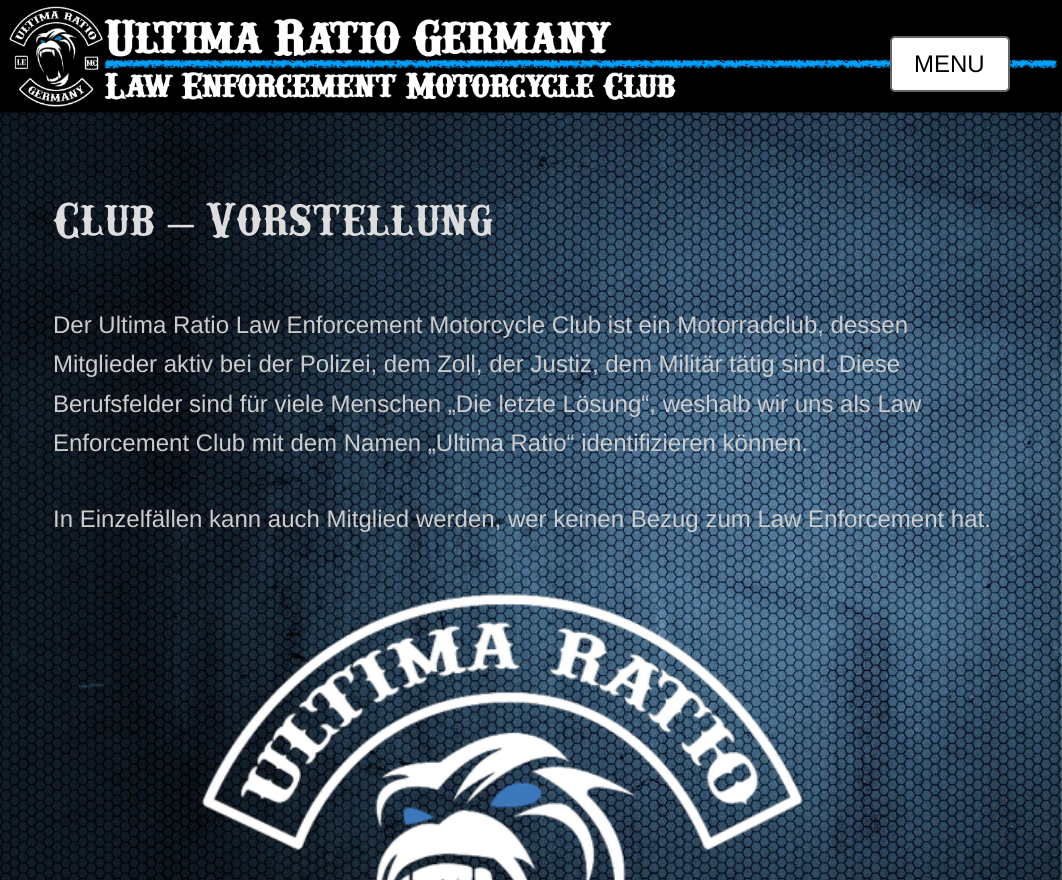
import math
import cairocffi as cairo

surface = cairo.ImageSurface(cairo.FORMAT_RGB24, 1062, 880)
ctx = cairo.Context(surface)
options = cairo.FontOptions()
options.set_hint_metrics(cairo.HINT_METRICS_OFF)
options.set_hint_style(cairo.HINT_STYLE_NONE)
ctx.set_font_options(options)
ctx.set_miter_limit(4)


def rgb(r, g, b):
    ctx.set_source_rgb(r / 255, g / 255, b / 255)


def face(family, size, italic, bold):
    ctx.select_font_face(family, cairo.FONT_SLANT_ITALIC if italic else cairo.FONT_SLANT_NORMAL, cairo.FONT_WEIGHT_BOLD if bold else cairo.FONT_WEIGHT_NORMAL)
    ctx.set_font_size(size)


def label(x, y, s):
    ctx.move_to(x, y)
    ctx.show_text(s)


def rrect(x, y, w, h, r):
    ctx.new_sub_path()
    for i, (u, v) in enumerate([(x + w - r, y + h - r), (x + r, y + h - r), (x + r, y + r), (x + w - r, y + r)]):
        ctx.arc(u, v, r, i * math.pi / 2, (i + 1) * math.pi / 2)
    ctx.close_path()


def image(path, x, y, w, h):
    ctx.save()
    ctx.set_source_surface(cairo.ImageSurface.create_from_png(path), x, y)
    ctx.rectangle(x, y, w, h)
    ctx.fill()
    ctx.restore()


rgb(255, 255, 255)
ctx.paint()
image('image0.png', 0, 112, 1062, 768)
image('image1.png', 0, 0, 1062, 113)
rgb(255, 255, 255)
rrect(891, 37, 118, 54, 4)
ctx.fill_preserve()
rgb(102, 102, 102)
ctx.stroke()
face('Liberation Sans', 24, 0, 0)
rgb(0, 0, 0)
label(914, 72, 'MENU')
face('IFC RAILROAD', 51, 0, 1)
rgb(221, 221, 221)
label(53, 238, 'Club')
face('Liberation Serif', 51, 0, 0)
label(168, 238, '–')
face('IFC RAILROAD', 51, 0, 1)
label(206, 238, 'Vorstellung')
face('Liberation Sans', 24, 0, 0)
rgb(204, 204, 204)
label(53, 333, 'Der Ultima Ratio Law Enforcement Motorcycle Club ist ein Motorradclub, dessen')
label(53, 372, 'Mitglieder aktiv bei der Polizei, dem Zoll, der Justiz, dem Militär tätig sind. Diese')
label(53, 412, 'Berufsfelder sind für viele Menschen „Die letzte Lösung“, weshalb wir uns als Law')
label(53, 451, 'Enforcement Club mit dem Namen „Ultima Ratio“ identifizieren können.')
label(53, 527, 'In Einzelfällen kann auch Mitglied werden, wer keinen Bezug zum Law Enforcement hat.')
image('image2.png', 201, 593, 603, 287)
surface.write_to_png('render.png')
